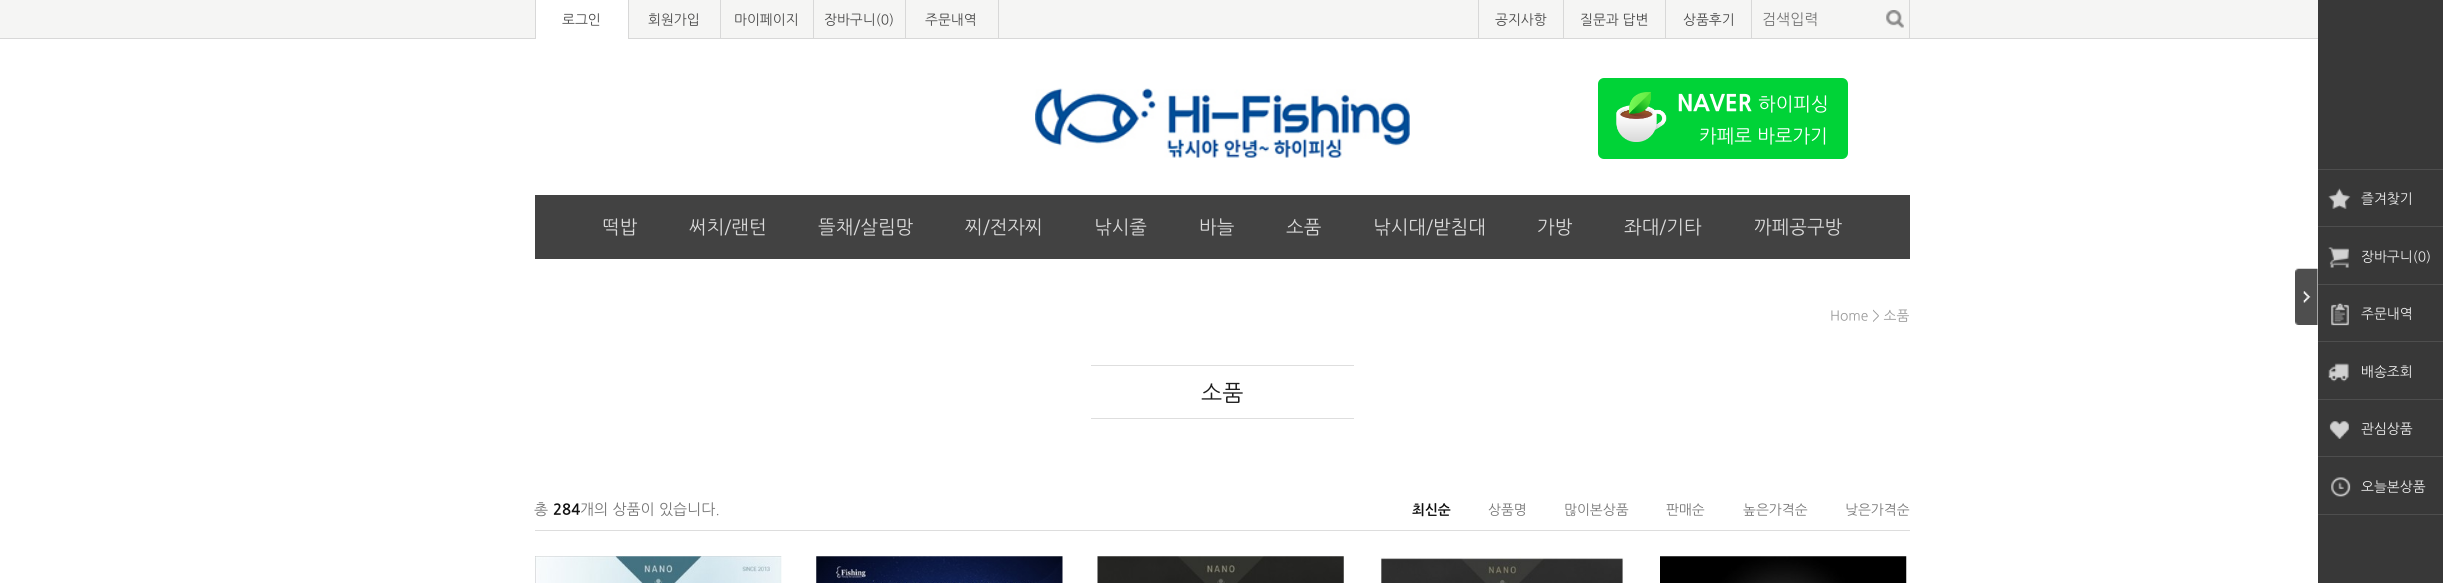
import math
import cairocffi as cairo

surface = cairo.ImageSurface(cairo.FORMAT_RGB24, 2443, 583)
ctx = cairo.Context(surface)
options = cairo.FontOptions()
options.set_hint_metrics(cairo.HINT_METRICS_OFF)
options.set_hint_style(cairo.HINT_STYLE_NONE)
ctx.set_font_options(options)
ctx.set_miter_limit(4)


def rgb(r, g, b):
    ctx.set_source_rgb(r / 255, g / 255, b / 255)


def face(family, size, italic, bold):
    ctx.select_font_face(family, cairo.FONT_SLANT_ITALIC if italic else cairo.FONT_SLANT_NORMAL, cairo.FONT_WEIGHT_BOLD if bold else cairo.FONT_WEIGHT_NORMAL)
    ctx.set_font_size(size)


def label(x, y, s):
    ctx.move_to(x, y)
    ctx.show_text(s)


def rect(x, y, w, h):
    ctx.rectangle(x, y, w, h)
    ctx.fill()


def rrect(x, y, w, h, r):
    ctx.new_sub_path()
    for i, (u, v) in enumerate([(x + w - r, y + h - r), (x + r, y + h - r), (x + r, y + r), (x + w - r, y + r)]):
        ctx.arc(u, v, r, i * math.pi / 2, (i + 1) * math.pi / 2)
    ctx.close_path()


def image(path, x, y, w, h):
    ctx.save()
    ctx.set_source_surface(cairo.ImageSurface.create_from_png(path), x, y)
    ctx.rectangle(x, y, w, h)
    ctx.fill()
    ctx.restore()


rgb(255, 255, 255)
ctx.paint()
rgb(245, 245, 244)
rect(0, 0, 2318, 38)
rgb(216, 216, 216)
rect(0, 38, 2318, 1)
rgb(255, 255, 255)
rect(536, 0, 92, 39)
rgb(216, 216, 216)
rect(535, 0, 1, 39)
face('NanumGothic', 13.75, 0, 0)
rgb(73, 73, 73)
label(562, 24, '로그인')
rgb(216, 216, 216)
rect(628, 0, 1, 39)
rgb(73, 73, 73)
label(648, 24, '회원가입')
rgb(216, 216, 216)
rect(720, 0, 1, 39)
rgb(73, 73, 73)
label(734, 24, '마이페이지')
rgb(216, 216, 216)
rect(813, 0, 1, 39)
rgb(73, 73, 73)
label(824, 24, '장바구니(0)')
rgb(216, 216, 216)
rect(998, 0, 1, 39)
rect(905, 0, 1, 39)
rgb(73, 73, 73)
label(925, 24, '주문내역')
rgb(216, 216, 216)
rect(1478, 0, 1, 39)
rgb(73, 73, 73)
label(1495, 24, '공지사항')
rgb(216, 216, 216)
rect(1563, 0, 1, 39)
rgb(73, 73, 73)
label(1580, 24, '질문과 답변')
rgb(216, 216, 216)
rect(1665, 0, 1, 39)
rgb(73, 73, 73)
label(1683, 24, '상품후기')
rgb(216, 216, 216)
rect(1909, 0, 1, 39)
rect(1751, 0, 1, 39)
face('NanumGothic', 15, 0, 0)
rgb(119, 119, 119)
label(1762, 24, '검색입력')
image('image0.png', 1886, 10, 18, 18)
image('image1.png', 1035, 88, 375, 70)
rgb(0, 211, 55)
rrect(1598, 78, 250, 81, 6)
ctx.fill()
image('image2.png', 1616, 92, 51, 50)
face('NanumGothic ExtraBold', 22.5, 0, 0)
rgb(255, 255, 255)
label(1677, 110, 'NAVER')
face('NanumGothic', 18.75, 0, 0)
label(1758, 110, '하이피싱')
label(1699, 142, '카페로 바로가기')
rgb(66, 66, 66)
rect(535, 195, 1375, 64)
rgb(217, 217, 217)
label(602, 233, '떡밥')
label(689, 233, '써치/랜턴')
label(818, 233, '뜰채/살림망')
label(965, 233, '찌/전자찌')
label(1094, 233, '낚시줄')
label(1199, 233, '바늘')
label(1286, 233, '소품')
label(1373, 233, '낚시대/받침대')
label(1537, 233, '가방')
label(1624, 233, '좌대/기타')
label(1754, 233, '까페공구방')
face('NanumGothic', 13.75, 0, 0)
rgb(153, 153, 153)
label(1830, 320, 'Home > 소품')
rgb(222, 222, 222)
rect(1091, 365, 263, 1)
rect(1091, 418, 263, 1)
face('NanumGothic', 22.5, 0, 0)
rgb(30, 30, 30)
label(1201, 400, '소품')
rgb(221, 221, 221)
rect(535, 530, 1375, 1)
face('NanumGothic', 15, 0, 0)
rgb(119, 119, 119)
label(534, 514, '총')
face('NanumGothic', 15, 0, 1)
rgb(17, 17, 17)
label(553, 514, '284')
face('NanumGothic', 15, 0, 0)
rgb(119, 119, 119)
label(580, 514, '개의 상품이 있습니다.')
face('NanumGothic', 13.75, 0, 1)
rgb(17, 17, 17)
label(1412, 514, '최신순')
face('NanumGothic', 13.75, 0, 0)
rgb(119, 119, 119)
label(1488, 514, '상품명')
label(1564, 514, '많이본상품')
label(1666, 514, '판매순')
label(1743, 514, '높은가격순')
label(1845, 514, '낮은가격순')
image('image3.png', 535, 556, 247, 27)
image('image4.png', 816, 556, 247, 27)
image('image5.png', 1097, 556, 247, 27)
image('image6.png', 1380, 557, 244, 26)
image('image7.png', 1660, 556, 247, 27)
rgb(56, 56, 56)
rect(2318, 0, 125, 583)
image('image8.png', 2295, 268, 23, 57)
rgb(78, 78, 78)
rect(2318, 169, 125, 1)
rect(2318, 226, 125, 1)
image('image9.png', 2328, 188, 23, 21)
rgb(240, 240, 240)
label(2361, 203, '즐겨찾기')
rgb(78, 78, 78)
rect(2318, 284, 125, 1)
image('image10.png', 2328, 247, 21, 21)
rgb(240, 240, 240)
label(2361, 261, '장바구니(0)')
rgb(78, 78, 78)
rect(2318, 341, 125, 1)
image('image11.png', 2331, 303, 18, 23)
rgb(240, 240, 240)
label(2361, 318, '주문내역')
rgb(78, 78, 78)
rect(2318, 399, 125, 1)
image('image12.png', 2328, 363, 21, 19)
rgb(240, 240, 240)
label(2361, 376, '배송조회')
rgb(78, 78, 78)
rect(2318, 456, 125, 1)
image('image13.png', 2329, 421, 20, 18)
rgb(240, 240, 240)
label(2361, 433, '관심상품')
rgb(78, 78, 78)
rect(2318, 514, 125, 1)
image('image14.png', 2331, 477, 20, 20)
rgb(240, 240, 240)
label(2361, 491, '오늘본상품')
surface.write_to_png('render.png')
